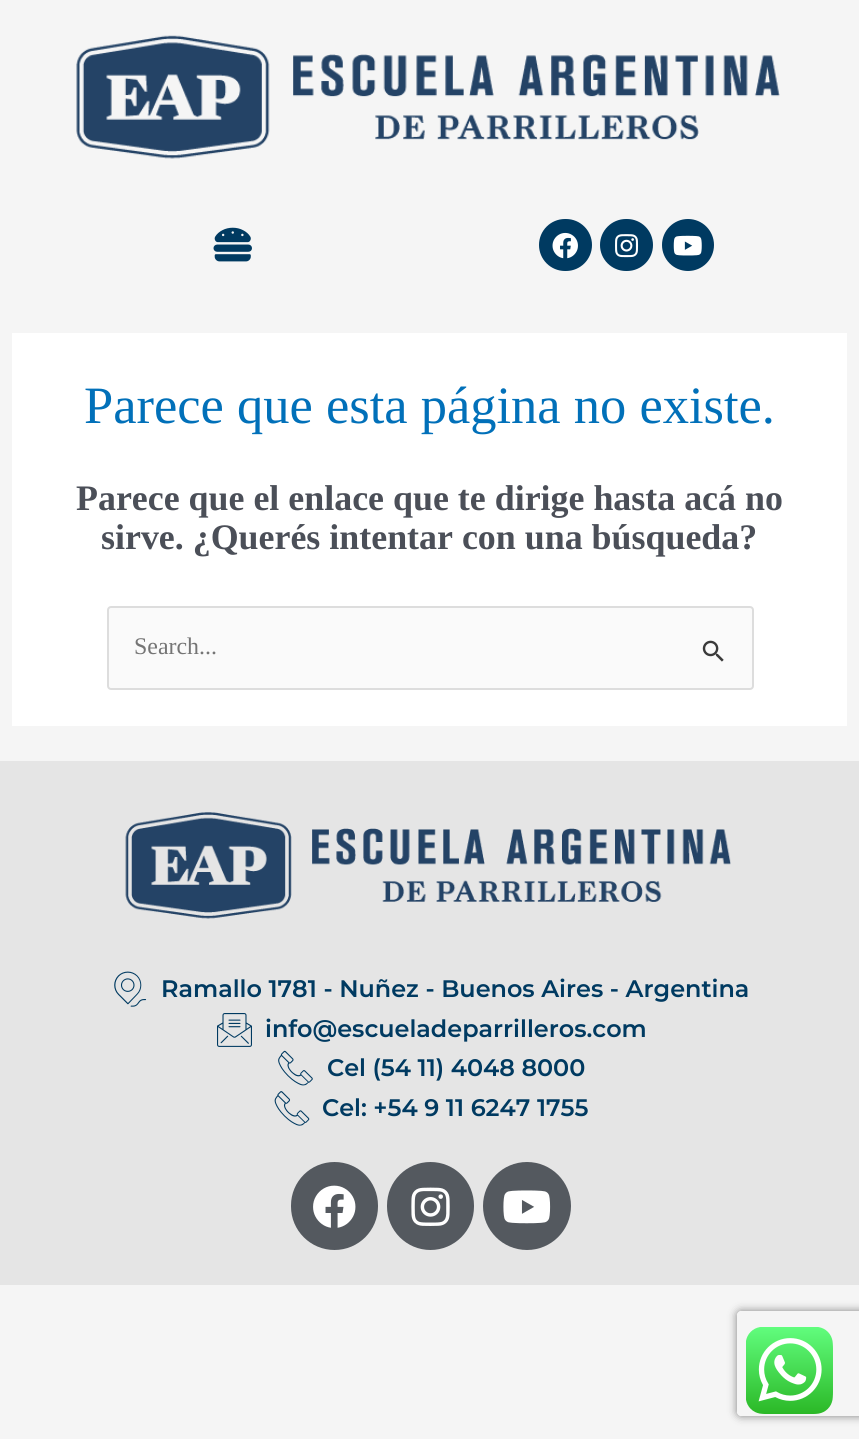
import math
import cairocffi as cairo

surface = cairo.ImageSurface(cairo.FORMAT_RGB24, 859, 1439)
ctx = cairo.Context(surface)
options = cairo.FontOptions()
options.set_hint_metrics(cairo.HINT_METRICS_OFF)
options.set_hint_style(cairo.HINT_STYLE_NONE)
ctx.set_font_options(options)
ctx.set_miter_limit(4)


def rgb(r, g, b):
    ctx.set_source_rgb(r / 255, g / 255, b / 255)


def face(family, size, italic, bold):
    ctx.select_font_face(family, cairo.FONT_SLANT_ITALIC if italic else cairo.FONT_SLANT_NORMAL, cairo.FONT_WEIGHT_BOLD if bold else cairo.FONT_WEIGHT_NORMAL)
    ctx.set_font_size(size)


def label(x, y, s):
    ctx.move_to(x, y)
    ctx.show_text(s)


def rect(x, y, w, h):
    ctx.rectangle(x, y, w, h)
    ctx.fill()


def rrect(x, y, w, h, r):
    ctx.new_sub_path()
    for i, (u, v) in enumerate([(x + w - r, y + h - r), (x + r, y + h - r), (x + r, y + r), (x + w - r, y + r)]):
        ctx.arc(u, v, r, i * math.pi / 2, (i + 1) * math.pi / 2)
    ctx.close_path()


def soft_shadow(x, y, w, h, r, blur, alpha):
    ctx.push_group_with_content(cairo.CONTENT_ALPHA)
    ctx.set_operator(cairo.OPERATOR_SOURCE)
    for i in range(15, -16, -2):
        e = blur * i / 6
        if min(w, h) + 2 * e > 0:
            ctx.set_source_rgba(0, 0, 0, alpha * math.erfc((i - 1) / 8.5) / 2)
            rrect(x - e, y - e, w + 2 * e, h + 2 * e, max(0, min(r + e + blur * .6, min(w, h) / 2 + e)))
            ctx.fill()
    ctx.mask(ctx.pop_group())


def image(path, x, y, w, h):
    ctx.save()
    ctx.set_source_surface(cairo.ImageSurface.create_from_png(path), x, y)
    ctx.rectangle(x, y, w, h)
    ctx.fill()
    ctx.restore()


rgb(245, 245, 245)
ctx.paint()
image('image0.png', 76, 35, 704, 124)
image('image1.png', 213, 227, 39, 35)
rgb(0, 58, 97)
rrect(539, 219, 53, 52, 26)
ctx.fill()
image('image2.png', 552, 232, 26, 27)
rrect(600, 219, 53, 52, 26)
ctx.fill()
image('image3.png', 615, 234, 24, 24)
ctx.arc(688, 245, 26, 0, 2 * math.pi)
ctx.fill()
image('image4.png', 673, 235, 29, 21)
rgb(255, 255, 255)
rect(12, 333, 835, 393)
face('Liberation Serif', 52.5, 0, 0)
rgb(1, 112, 185)
label(84, 423, 'Parece que esta página no existe.')
face('Liberation Serif', 35.9, 0, 1)
rgb(75, 79, 88)
label(76, 510, 'Parece que el enlace que te dirige hasta acá no')
label(101, 549, 'sirve. ¿Querés intentar con una búsqueda?')
rgb(250, 250, 250)
rrect(108, 607, 645, 82, 3)
ctx.fill_preserve()
rgb(221, 221, 221)
ctx.stroke()
face('Liberation Serif', 23.9, 0, 0)
rgb(117, 117, 117)
label(134, 654, 'Search...')
image('image5.png', 702, 640, 22, 22)
rgb(229, 229, 229)
rect(0, 761, 859, 524)
image('image6.png', 125, 812, 606, 107)
image('image7.png', 114, 971, 33, 36)
face('Montserrat SemiBold', 23.9, 0, 0)
rgb(0, 58, 97)
label(161, 997, 'Ramallo 1781 - Nuñez - Buenos Aires - Argentina')
image('image8.png', 217, 1013, 35, 34)
label(265, 1037, 'info@escueladeparrilleros.com')
image('image9.png', 278, 1050, 35, 36)
label(327, 1076, 'Cel (54 11) 4048 8000')
image('image10.png', 274, 1091, 36, 35)
label(322, 1116, 'Cel: +54 9 11 6247 1755')
rgb(84, 89, 95)
rrect(291, 1162, 87, 88, 43.5)
ctx.fill()
image('image11.png', 313, 1185, 43, 43)
rrect(387, 1162, 87, 88, 43.5)
ctx.fill()
image('image12.png', 411, 1187, 39, 39)
ctx.arc(527, 1206, 44, 0, 2 * math.pi)
ctx.fill()
image('image13.png', 503, 1190, 48, 34)
ctx.save()
ctx.set_fill_rule(cairo.FILL_RULE_EVEN_ODD)
ctx.new_path()
ctx.move_to(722, 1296)
ctx.line_to(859, 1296)
ctx.line_to(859, 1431)
ctx.line_to(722, 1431)
ctx.close_path()
ctx.move_to(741, 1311)
ctx.line_to(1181, 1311)
ctx.curve_to(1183, 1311, 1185, 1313, 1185, 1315)
ctx.line_to(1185, 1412)
ctx.curve_to(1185, 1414, 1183, 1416, 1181, 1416)
ctx.line_to(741, 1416)
ctx.curve_to(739, 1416, 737, 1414, 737, 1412)
ctx.line_to(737, 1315)
ctx.curve_to(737, 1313, 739, 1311, 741, 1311)
ctx.close_path()
ctx.clip()
rgb(128, 128, 128)
soft_shadow(737, 1311, 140, 105, 4, 4.5, 1)
ctx.restore()
image('image14.png', 746, 1327, 87, 87)
surface.write_to_png('render.png')
